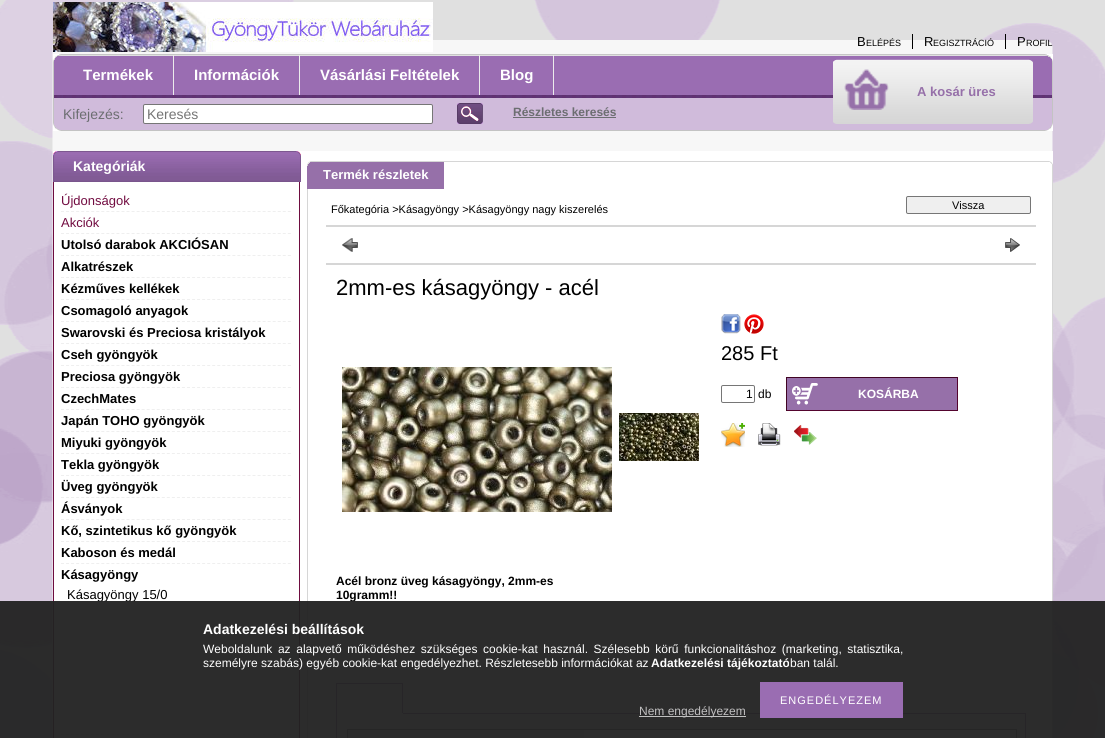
import math
import cairocffi as cairo

surface = cairo.ImageSurface(cairo.FORMAT_RGB24, 1105, 738)
ctx = cairo.Context(surface)
options = cairo.FontOptions()
options.set_hint_metrics(cairo.HINT_METRICS_OFF)
options.set_hint_style(cairo.HINT_STYLE_NONE)
ctx.set_font_options(options)
ctx.set_miter_limit(4)


def rgb(r, g, b):
    ctx.set_source_rgb(r / 255, g / 255, b / 255)


def face(family, size, italic, bold):
    ctx.select_font_face(family, cairo.FONT_SLANT_ITALIC if italic else cairo.FONT_SLANT_NORMAL, cairo.FONT_WEIGHT_BOLD if bold else cairo.FONT_WEIGHT_NORMAL)
    ctx.set_font_size(size)


def label(x, y, s):
    ctx.move_to(x, y)
    ctx.show_text(s)


def tracked(x, y, s, letter, word):
    ctx.move_to(x, y)
    for ch in s:
        ctx.show_text(ch)
        ctx.rel_move_to(letter + word * (ch == ' '), 0)


def rect(x, y, w, h):
    ctx.rectangle(x, y, w, h)
    ctx.fill()


def rrect(x, y, w, h, r):
    ctx.new_sub_path()
    for i, (u, v) in enumerate([(x + w - r, y + h - r), (x + r, y + h - r), (x + r, y + r), (x + w - r, y + r)]):
        ctx.arc(u, v, r, i * math.pi / 2, (i + 1) * math.pi / 2)
    ctx.close_path()


def image(path, x, y, w, h):
    ctx.save()
    ctx.set_source_surface(cairo.ImageSurface.create_from_png(path), x, y)
    ctx.rectangle(x, y, w, h)
    ctx.fill()
    ctx.restore()


rgb(255, 255, 255)
ctx.paint()
image('image0.png', 0, 0, 1105, 738)
image('image1.png', 53, 2, 380, 50)
face('Liberation Sans', 13, 0, 0)
rgb(0, 0, 0)
label(857, 46, 'B')
face('Liberation Sans', 9, 0, 0)
label(866, 46, 'ELÉPÉS')
rect(912, 34, 1, 15)
face('Liberation Sans', 13, 0, 0)
label(924, 46, 'R')
face('Liberation Sans', 9, 0, 0)
label(933, 46, 'EGISZTRÁCIÓ')
rect(1005, 34, 1, 15)
face('Liberation Sans', 13, 0, 0)
label(1017, 46, 'P')
face('Liberation Sans', 9, 0, 0)
label(1026, 46, 'ROFIL')
image('image2.png', 53, 54, 10, 77)
image('image3.png', 63, 54, 980, 77)
rgb(236, 236, 236)
rect(173, 55, 1, 40)
face('Liberation Sans', 15, 0, 1)
rgb(255, 255, 255)
label(83, 80, 'Termékek')
rgb(236, 236, 236)
rect(299, 55, 1, 40)
rgb(255, 255, 255)
label(194, 80, 'Információk')
rgb(236, 236, 236)
rect(479, 55, 1, 40)
rgb(255, 255, 255)
label(320, 80, 'Vásárlási Feltételek')
rgb(236, 236, 236)
rect(553, 55, 1, 40)
rgb(255, 255, 255)
label(500, 80, 'Blog')
face('Liberation Sans', 14, 0, 0)
rgb(108, 110, 113)
label(63, 119, 'Kifejezés:')
rgb(255, 255, 255)
rrect(143.5, 104.5, 289, 19, 1.5)
ctx.fill_preserve()
rgb(118, 118, 118)
ctx.set_line_width(1)
ctx.stroke()
rgb(117, 117, 117)
label(147, 119, 'Keresés')
image('image4.png', 457, 103, 26, 21)
face('Liberation Sans', 12, 0, 1)
rgb(108, 110, 113)
label(513, 116, 'Részletes keresés')
rect(513, 117, 103, 1)
image('image5.png', 833, 59, 6, 65)
image('image6.png', 839, 59, 188, 65)
image('image7.png', 844, 69, 45, 41)
face('Liberation Sans', 13, 0, 1)
rgb(150, 112, 169)
label(917, 96, 'A kosár üres')
image('image8.png', 1027, 59, 6, 65)
image('image9.png', 1043, 54, 10, 77)
image('image10.png', 54, 151, 999, 587)
image('image11.png', 53, 151, 248, 31)
face('Liberation Sans', 14, 0, 1)
rgb(255, 255, 255)
label(73, 171, 'Kategóriák')
rgb(110, 12, 63)
rect(299, 182, 1, 556)
rect(53, 182, 1, 556)
ctx.new_path()
ctx.move_to(61, 211.5)
ctx.line_to(291, 211.5)
rgb(239, 239, 239)
ctx.set_dash([3, 2.04])
ctx.stroke()
face('Liberation Sans', 13, 0, 0)
rgb(114, 12, 65)
label(61, 205, 'Újdonságok')
ctx.new_path()
ctx.move_to(61, 233.5)
ctx.line_to(291, 233.5)
rgb(239, 239, 239)
ctx.stroke()
rgb(114, 12, 65)
label(61, 227, 'Akciók')
ctx.new_path()
ctx.move_to(61, 255.5)
ctx.line_to(291, 255.5)
rgb(239, 239, 239)
ctx.stroke()
face('Liberation Sans', 13, 0, 1)
rgb(0, 0, 0)
label(61, 249, 'Utolsó darabok AKCIÓSAN')
ctx.new_path()
ctx.move_to(61, 277.5)
ctx.line_to(291, 277.5)
rgb(239, 239, 239)
ctx.stroke()
rgb(0, 0, 0)
label(61, 271, 'Alkatrészek')
ctx.new_path()
ctx.move_to(61, 299.5)
ctx.line_to(291, 299.5)
rgb(239, 239, 239)
ctx.stroke()
rgb(0, 0, 0)
label(61, 293, 'Kézműves kellékek')
ctx.new_path()
ctx.move_to(61, 321.5)
ctx.line_to(291, 321.5)
rgb(239, 239, 239)
ctx.stroke()
rgb(0, 0, 0)
label(61, 315, 'Csomagoló anyagok')
ctx.new_path()
ctx.move_to(61, 343.5)
ctx.line_to(291, 343.5)
rgb(239, 239, 239)
ctx.stroke()
rgb(0, 0, 0)
label(61, 337, 'Swarovski és Preciosa kristályok')
ctx.new_path()
ctx.move_to(61, 365.5)
ctx.line_to(291, 365.5)
rgb(239, 239, 239)
ctx.stroke()
rgb(0, 0, 0)
label(61, 359, 'Cseh gyöngyök')
ctx.new_path()
ctx.move_to(61, 387.5)
ctx.line_to(291, 387.5)
rgb(239, 239, 239)
ctx.stroke()
rgb(0, 0, 0)
label(61, 381, 'Preciosa gyöngyök')
ctx.new_path()
ctx.move_to(61, 409.5)
ctx.line_to(291, 409.5)
rgb(239, 239, 239)
ctx.stroke()
rgb(0, 0, 0)
label(61, 403, 'CzechMates')
ctx.new_path()
ctx.move_to(61, 431.5)
ctx.line_to(291, 431.5)
rgb(239, 239, 239)
ctx.stroke()
rgb(0, 0, 0)
label(61, 425, 'Japán TOHO gyöngyök')
ctx.new_path()
ctx.move_to(61, 453.5)
ctx.line_to(291, 453.5)
rgb(239, 239, 239)
ctx.stroke()
rgb(0, 0, 0)
label(61, 447, 'Miyuki gyöngyök')
ctx.new_path()
ctx.move_to(61, 475.5)
ctx.line_to(291, 475.5)
rgb(239, 239, 239)
ctx.stroke()
rgb(0, 0, 0)
label(61, 469, 'Tekla gyöngyök')
ctx.new_path()
ctx.move_to(61, 497.5)
ctx.line_to(291, 497.5)
rgb(239, 239, 239)
ctx.stroke()
rgb(0, 0, 0)
label(61, 491, 'Üveg gyöngyök')
ctx.new_path()
ctx.move_to(61, 519.5)
ctx.line_to(291, 519.5)
rgb(239, 239, 239)
ctx.stroke()
rgb(0, 0, 0)
label(61, 513, 'Ásványok')
ctx.new_path()
ctx.move_to(61, 541.5)
ctx.line_to(291, 541.5)
rgb(239, 239, 239)
ctx.stroke()
rgb(0, 0, 0)
label(61, 535, 'Kő, szintetikus kő gyöngyök')
ctx.new_path()
ctx.move_to(61, 563.5)
ctx.line_to(291, 563.5)
rgb(239, 239, 239)
ctx.stroke()
rgb(0, 0, 0)
label(61, 557, 'Kaboson és medál')
ctx.new_path()
ctx.move_to(61, 734.5)
ctx.line_to(291, 734.5)
rgb(239, 239, 239)
ctx.stroke()
rgb(0, 0, 0)
label(61, 579, 'Kásagyöngy')
face('Liberation Sans', 13, 0, 0)
label(67, 599, 'Kásagyöngy 15/0')
rgb(255, 255, 255)
rect(307, 151, 746, 10)
rgb(150, 112, 169)
rect(307, 162, 137, 27)
image('image12.png', 307, 161, 746, 5)
face('Liberation Sans', 13, 0, 1)
rgb(255, 255, 255)
label(323, 179, 'Termék részletek')
face('Liberation Sans', 11, 0, 0)
rgb(0, 0, 0)
label(331, 213, 'Főkategória >Kásagyöngy >Kásagyöngy nagy kiszerelés')
rgb(239, 239, 239)
rrect(906.5, 196.5, 124, 17, 1.5)
ctx.fill_preserve()
rgb(118, 118, 118)
ctx.set_dash([])
ctx.stroke()
rgb(0, 0, 0)
label(952, 209, 'Vissza')
rgb(214, 214, 214)
rect(326, 225, 710, 2)
image('image13.png', 342, 238, 16, 14)
image('image14.png', 1005, 238, 15, 14)
rect(326, 263, 710, 2)
face('Liberation Sans', 22, 0, 0)
rgb(0, 0, 0)
label(336, 295, '2mm-es kásagyöngy - acél')
image('image15.png', 342, 367, 270, 145)
image('image16.png', 619, 413, 80, 48)
image('image17.png', 721, 314, 20, 20)
image('image18.png', 744, 314, 20, 20)
face('Liberation Sans', 20, 0, 0)
label(721, 360, '285 Ft')
rrect(721.5, 385.5, 33, 17, 1.5)
rgb(118, 118, 118)
ctx.stroke()
face('Liberation Sans', 12, 0, 0)
rgb(0, 0, 0)
label(746, 398, '1')
label(758, 398, 'db')
rgb(150, 112, 169)
rect(787, 378, 170, 32)
image('image19.png', 792, 383, 26, 22)
rgb(64, 4, 35)
rect(786, 377, 172, 1)
rgb(84, 4, 46)
rect(957, 377, 1, 34)
rect(786, 410, 172, 1)
rgb(64, 4, 35)
rect(786, 377, 1, 34)
face('Liberation Sans', 12, 0, 1)
rgb(255, 255, 255)
label(858, 398, 'KOSÁRBA')
image('image20.png', 721, 423, 24, 24)
image('image21.png', 758, 423, 23, 23)
image('image22.png', 794, 425, 23, 20)
rgb(0, 0, 0)
label(336, 585, 'Acél bronz üveg kásagyöngy, 2mm-es')
label(336, 599, '10gramm!!')
rgb(245, 245, 245)
rect(337, 684, 65, 29)
rgb(154, 109, 178)
rect(336, 683, 67, 1)
rgb(245, 245, 245)
ctx.rectangle(336.5, 713.5, 689, 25)
ctx.fill_preserve()
rgb(154, 109, 178)
ctx.stroke()
rect(402, 683, 1, 31)
rgb(245, 245, 245)
rect(336, 713, 67, 1)
rgb(154, 109, 178)
rect(336, 683, 1, 31)
ctx.rectangle(347.5, 729.5, 669, 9)
rgb(131, 131, 131)
ctx.stroke()
rgb(237, 237, 237)
rect(348, 730, 236, 8)
ctx.set_source_rgba(0.133, 0.133, 0.133, 0.95)
rect(0, 601, 1105, 137)
face('Liberation Sans', 14, 0, 1)
rgb(255, 255, 255)
label(203, 634, 'Adatkezelési beállítások')
face('Liberation Sans', 12, 0, 0)
tracked(203, 653, 'Weboldalunk az alapvető működéshez szükséges cookie-kat használ. Szélesebb körű funkcionalitáshoz (marketing, statisztika,', 0, 2.25)
label(203, 667, 'személyre szabás) egyéb cookie-kat engedélyezhet. Részletesebb információkat az')
face('Liberation Sans', 12, 0, 1)
label(651, 667, 'Adatkezelési tájékoztató')
face('Liberation Sans', 12, 0, 0)
label(790, 667, 'ban talál.')
rgb(154, 109, 178)
rect(760, 682, 143, 36)
face('Liberation Sans', 11, 0, 0)
rgb(255, 255, 255)
tracked(780, 704, 'ENGEDÉLYEZEM', 1, 0)
rgb(192, 192, 192)
rect(639, 716, 107, 1)
face('Liberation Sans', 12, 0, 0)
rgb(193, 192, 193)
label(639, 715, 'Nem engedélyezem')
surface.write_to_png('render.png')
